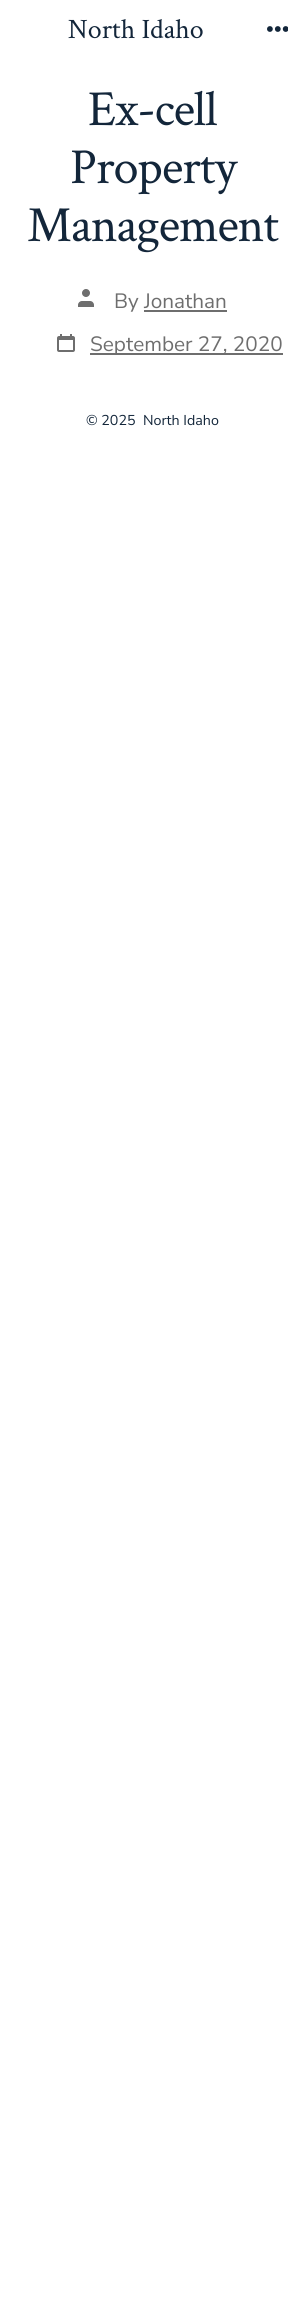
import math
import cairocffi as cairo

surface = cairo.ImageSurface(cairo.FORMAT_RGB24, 305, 2316)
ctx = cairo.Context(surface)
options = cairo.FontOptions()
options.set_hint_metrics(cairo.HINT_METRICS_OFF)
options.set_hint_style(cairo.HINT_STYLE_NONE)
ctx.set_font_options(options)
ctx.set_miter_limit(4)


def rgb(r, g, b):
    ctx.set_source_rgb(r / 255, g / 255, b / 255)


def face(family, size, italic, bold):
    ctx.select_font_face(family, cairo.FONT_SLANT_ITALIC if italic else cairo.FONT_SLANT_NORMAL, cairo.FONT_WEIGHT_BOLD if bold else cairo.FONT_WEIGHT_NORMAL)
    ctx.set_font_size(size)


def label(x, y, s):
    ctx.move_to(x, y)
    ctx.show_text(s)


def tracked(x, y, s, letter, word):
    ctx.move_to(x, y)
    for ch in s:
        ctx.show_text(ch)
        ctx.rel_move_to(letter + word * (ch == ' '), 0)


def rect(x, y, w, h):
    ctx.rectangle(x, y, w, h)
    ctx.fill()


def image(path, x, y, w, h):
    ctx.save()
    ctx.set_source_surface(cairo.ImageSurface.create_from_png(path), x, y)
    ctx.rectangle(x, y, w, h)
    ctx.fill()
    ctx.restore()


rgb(255, 255, 255)
ctx.paint()
face('Crimson Text', 28, 0, 0)
rgb(19, 38, 58)
label(68, 38, 'North Idaho')
image('image0.png', 267, 26, 21, 6)
face('Crimson Text', 50.5, 0, 0)
tracked(88, 125, 'Ex-cell', -1, 0)
tracked(70, 183, 'Property', -1, 0)
tracked(27, 241, 'Management', -1, 0)
image('image1.png', 78, 289, 16, 18)
face('Nunito Sans', 20.75, 0, 0)
rgb(110, 110, 110)
label(114, 308, 'By Jonathan')
rect(144, 310, 83, 2)
image('image2.png', 57, 334, 18, 18)
rect(90, 353, 193, 2)
label(90, 351, 'September 27, 2020')
face('Nunito Sans', 14.25, 0, 0)
rgb(19, 38, 58)
label(86, 425, '© 2025')
label(143, 425, 'North Idaho')
surface.write_to_png('render.png')
